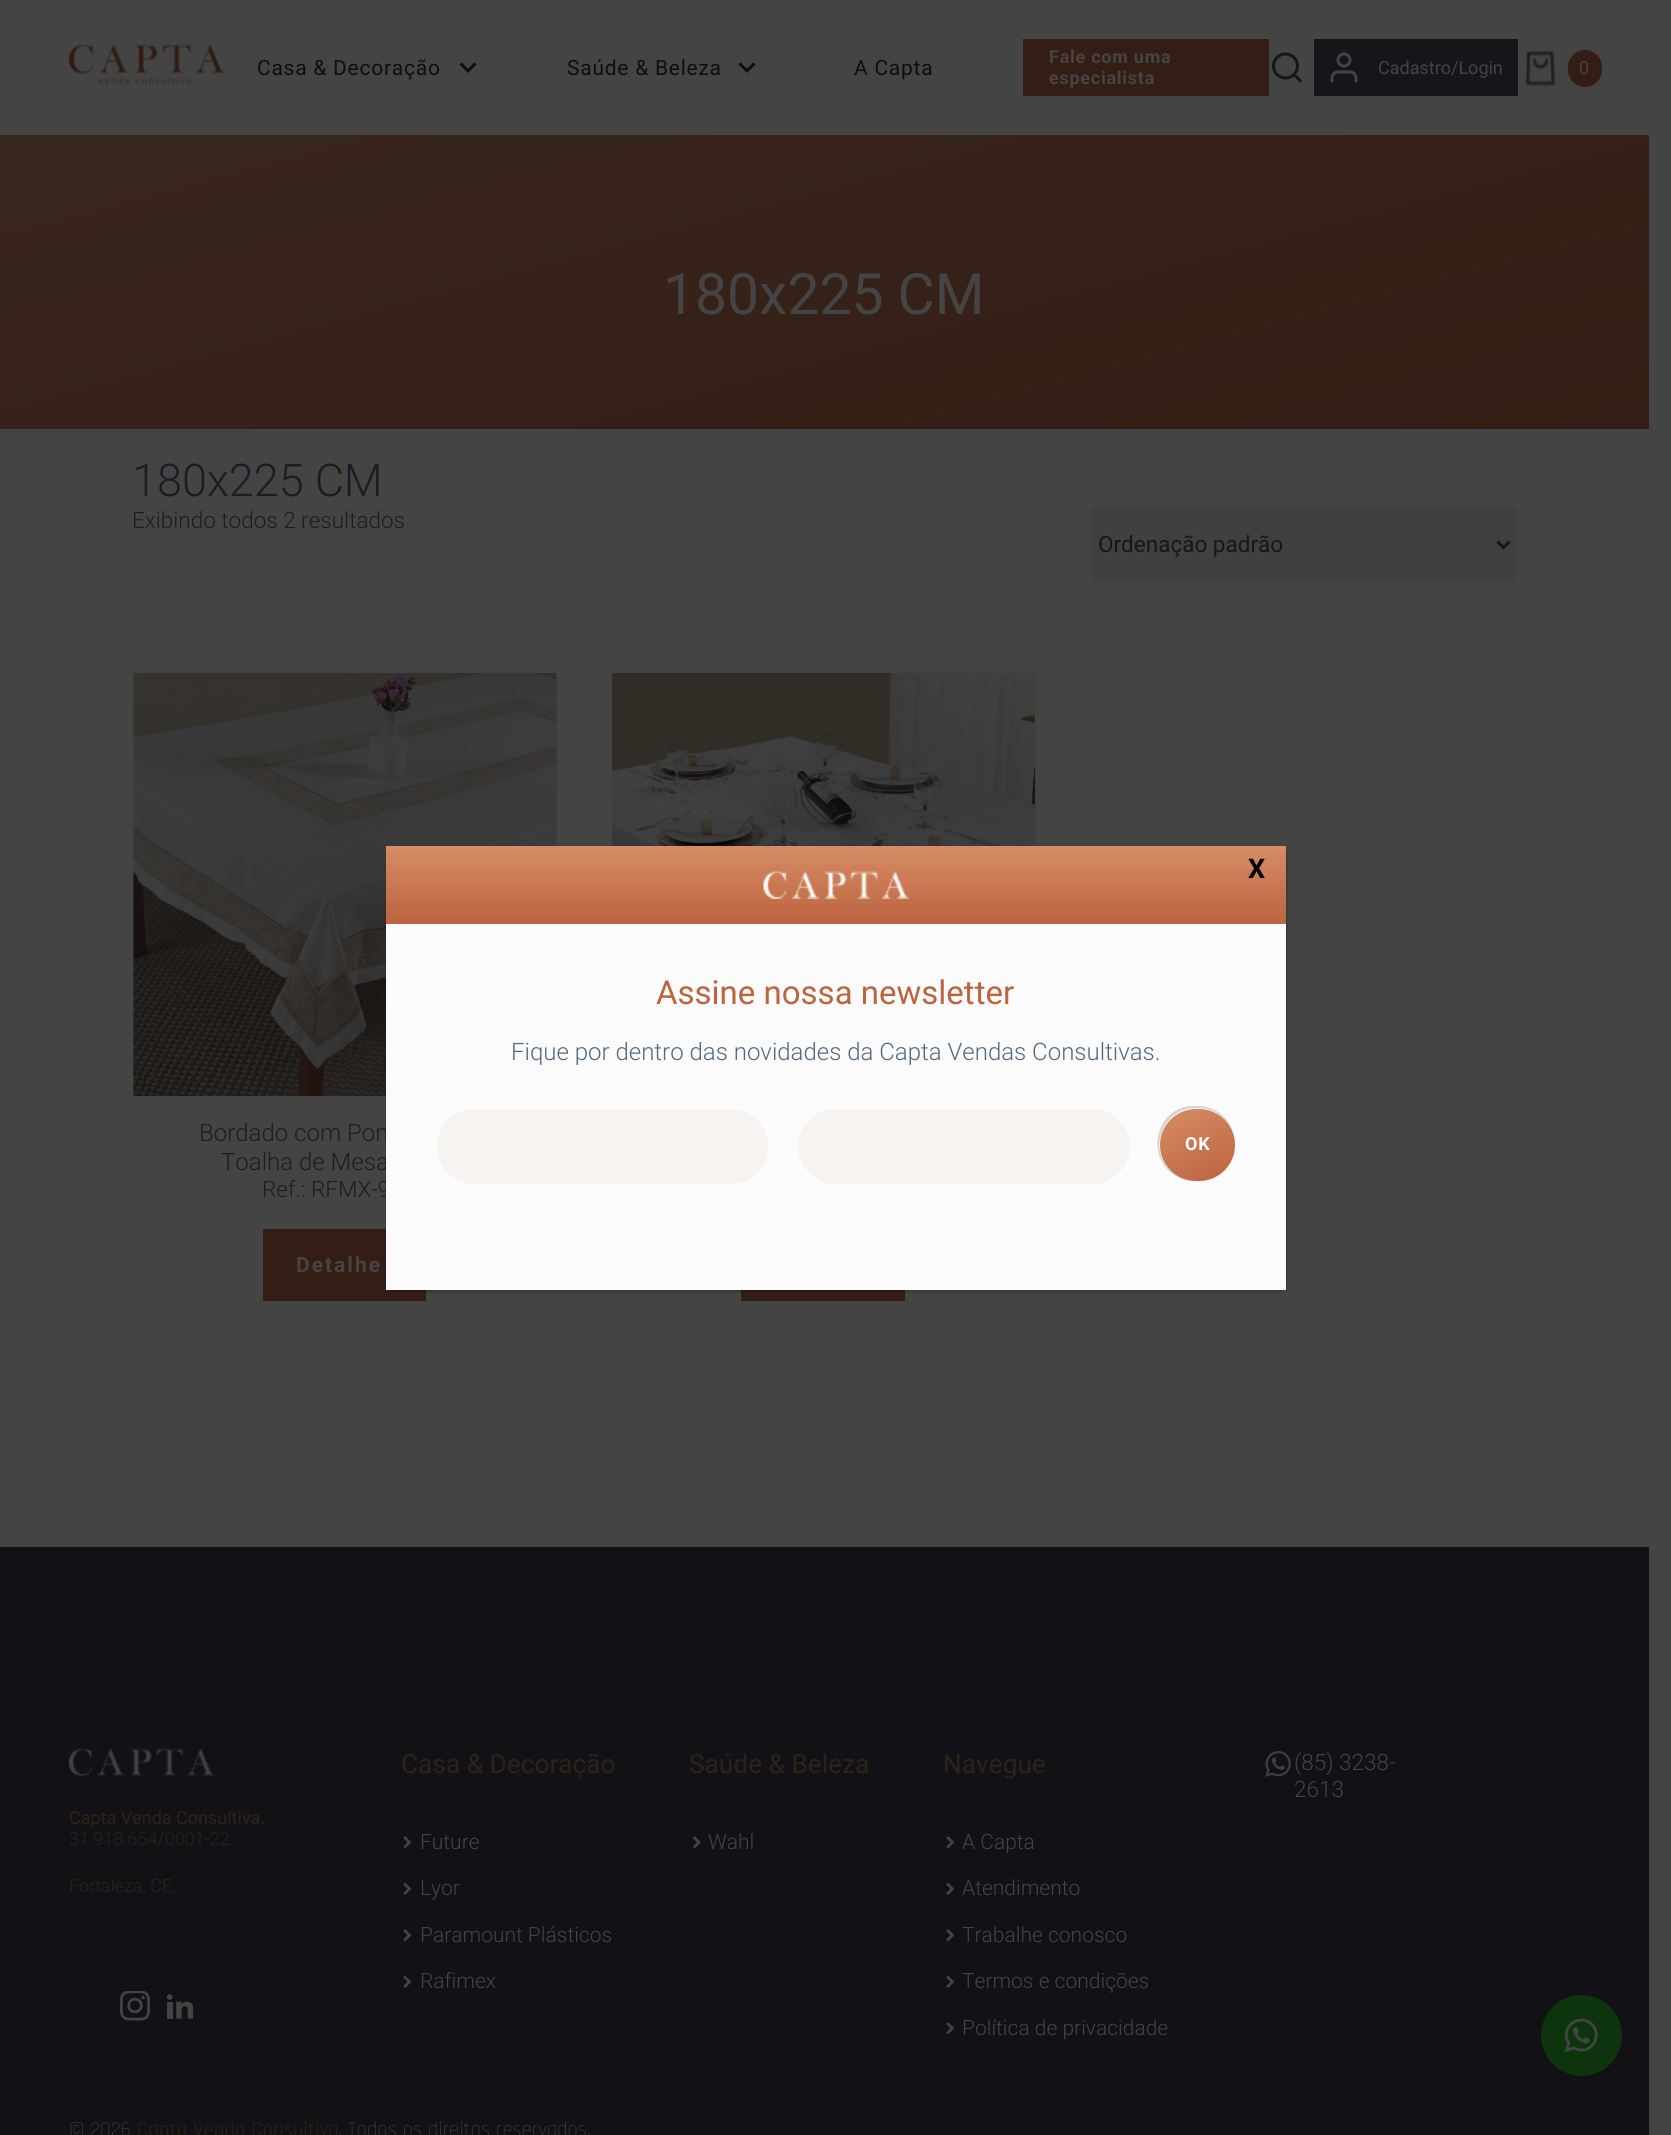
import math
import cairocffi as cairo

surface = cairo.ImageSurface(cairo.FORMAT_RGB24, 1671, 2135)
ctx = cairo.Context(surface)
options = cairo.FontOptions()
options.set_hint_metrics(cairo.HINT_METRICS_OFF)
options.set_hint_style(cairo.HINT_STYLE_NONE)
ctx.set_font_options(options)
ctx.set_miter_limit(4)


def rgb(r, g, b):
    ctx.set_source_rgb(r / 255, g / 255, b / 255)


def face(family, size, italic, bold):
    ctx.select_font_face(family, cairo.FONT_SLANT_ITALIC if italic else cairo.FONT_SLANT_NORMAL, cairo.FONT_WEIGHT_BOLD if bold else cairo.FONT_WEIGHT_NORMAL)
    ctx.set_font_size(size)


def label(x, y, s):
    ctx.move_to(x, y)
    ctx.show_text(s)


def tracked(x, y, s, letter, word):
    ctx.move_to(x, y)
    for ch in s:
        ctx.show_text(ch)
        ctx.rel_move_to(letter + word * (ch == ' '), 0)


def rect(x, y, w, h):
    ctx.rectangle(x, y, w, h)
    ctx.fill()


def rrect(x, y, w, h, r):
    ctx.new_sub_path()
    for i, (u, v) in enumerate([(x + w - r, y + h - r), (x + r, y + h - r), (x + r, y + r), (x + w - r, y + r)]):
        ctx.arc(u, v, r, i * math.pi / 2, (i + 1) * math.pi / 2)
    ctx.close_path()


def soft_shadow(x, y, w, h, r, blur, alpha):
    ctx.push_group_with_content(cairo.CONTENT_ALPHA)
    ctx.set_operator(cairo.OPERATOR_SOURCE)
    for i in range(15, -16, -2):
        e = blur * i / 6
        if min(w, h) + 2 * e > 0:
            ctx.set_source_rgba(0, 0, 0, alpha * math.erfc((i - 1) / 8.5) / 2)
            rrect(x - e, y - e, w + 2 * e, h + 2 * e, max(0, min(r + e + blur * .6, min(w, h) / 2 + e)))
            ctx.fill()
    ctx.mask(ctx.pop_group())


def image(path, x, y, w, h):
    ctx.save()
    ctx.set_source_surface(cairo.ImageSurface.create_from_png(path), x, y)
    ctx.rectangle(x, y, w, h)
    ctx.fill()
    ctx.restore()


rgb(68, 68, 68)
ctx.paint()
image('image0.png', 69, 44, 156, 41)
face('Roboto', 21, 0, 0)
rgb(13, 14, 16)
tracked(257, 75, 'Casa & Decoração', 0.75, 0)
image('image1.png', 459, 62, 18, 11)
tracked(567, 75, 'Saúde & Beleza', 0.75, 0)
image('image1.png', 738, 62, 18, 11)
tracked(854, 75, 'A Capta', 0.75, 0)
rgb(51, 29, 20)
rect(1023, 39, 246, 57)
face('Roboto', 18, 0, 1)
rgb(68, 68, 68)
tracked(1049, 63, 'Fale com uma', 0.75, 0)
tracked(1049, 84, 'especialista', 0.75, 0)
image('image2.png', 1272, 52, 30, 31)
rgb(21, 22, 25)
rect(1314, 39, 204, 57)
image('image3.png', 1330, 52, 28, 31)
face('Roboto', 18, 0, 0)
rgb(68, 68, 68)
label(1378, 74, 'Cadastro/Login')
image('image4.png', 1525, 50, 34, 39)
rgb(51, 29, 20)
rrect(1568, 50, 34, 37, 17)
ctx.fill()
rgb(68, 68, 68)
label(1579, 74, '0')
gradient = cairo.LinearGradient(930, 622, 719, -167)
gradient.add_color_stop_rgba(0, 0.2, 0.114, 0.078, 1)
gradient.add_color_stop_rgba(1, 0.224, 0.153, 0.114, 1)
ctx.set_source(gradient)
rect(0, 135, 1649, 294)
face('Roboto', 57, 0, 0)
rgb(68, 68, 68)
label(663, 314, '180x225 CM')
face('Roboto Light', 45, 0, 0)
rgb(24, 30, 35)
label(132, 496, '180x225 CM')
face('Roboto Light', 22.5, 0, 0)
label(132, 528, 'Exibindo todos 2 resultados')
rgb(64, 64, 64)
ctx.rectangle(1092, 508, 424, 73)
ctx.fill_preserve()
rgb(65, 65, 64)
ctx.stroke()
ctx.new_path()
ctx.move_to(1497.5, 541.5)
ctx.line_to(1503.5, 547.5)
ctx.line_to(1509.5, 541.5)
rgb(21, 22, 25)
ctx.set_line_width(3)
ctx.stroke()
face('Roboto', 22.5, 0, 0)
label(1098, 552, 'Ordenação padrão')
ctx.rectangle(133, 673, 424, 681)
rgb(64, 66, 68)
ctx.set_line_width(2)
ctx.stroke()
image('image5.png', 133, 673, 424, 423)
face('Roboto Light', 24, 0, 0)
rgb(24, 30, 35)
label(199, 1141, 'Bordado com Pon')
label(221, 1170, 'Toalha de Mesa')
face('Roboto Light', 22.5, 0, 0)
label(262, 1197, 'Ref.: RFMX-9')
rgb(51, 29, 20)
rect(263, 1229, 163, 72)
face('Roboto', 21, 0, 1)
rgb(68, 68, 68)
tracked(296, 1272, 'Detalhe', 2, 0)
ctx.rectangle(612, 673, 424, 681)
rgb(64, 66, 68)
ctx.stroke()
image('image6.png', 612, 673, 423, 173)
rgb(51, 29, 20)
rect(741, 1290, 164, 11)
rgb(17, 17, 22)
rect(0, 1547, 1649, 588)
image('image7.png', 69, 1748, 146, 28)
face('Roboto', 18, 0, 0)
rgb(48, 33, 24)
label(69, 1824, 'Capta Venda Consultiva.')
face('Roboto Light', 18, 0, 0)
label(69, 1845, '31.918.654/0001-22')
label(69, 1892, 'Fortaleza, CE,')
image('image8.png', 120, 1991, 30, 30)
image('image9.png', 166, 1994, 28, 25)
face('Roboto', 26.25, 0, 0)
label(401, 1773, 'Casa & Decoração')
image('image10.png', 403, 1836, 9, 13)
face('Roboto Light', 21, 0, 0)
rgb(68, 68, 68)
label(420, 1849, 'Future')
image('image11.png', 403, 1883, 9, 12)
label(420, 1895, 'Lyor')
image('image10.png', 403, 1929, 9, 13)
label(420, 1942, 'Paramount Plásticos')
image('image11.png', 403, 1976, 9, 12)
label(420, 1988, 'Rafimex')
face('Roboto', 26.25, 0, 0)
rgb(48, 33, 24)
label(689, 1773, 'Saúde & Beleza')
image('image12.png', 692, 1836, 9, 13)
face('Roboto Light', 21, 0, 0)
rgb(68, 68, 68)
label(708, 1849, 'Wahl')
face('Roboto', 26.25, 0, 0)
rgb(48, 33, 24)
label(943, 1773, 'Navegue')
image('image10.png', 946, 1836, 9, 13)
face('Roboto Light', 21, 0, 0)
rgb(68, 68, 68)
label(962, 1849, 'A Capta')
image('image11.png', 946, 1883, 9, 12)
label(962, 1895, 'Atendimento')
image('image10.png', 946, 1929, 9, 13)
label(962, 1942, 'Trabalhe conosco')
image('image11.png', 946, 1976, 9, 12)
label(962, 1988, 'Termos e condições')
image('image10.png', 946, 2022, 9, 13)
label(962, 2035, 'Política de privacidade')
image('image13.png', 1265, 1751, 26, 26)
face('Roboto Light', 22.5, 0, 0)
label(1294, 1770, '(85) 3238-')
label(1294, 1797, '2613')
rgb(13, 52, 13)
ctx.new_path()
ctx.arc(1581.5, 2035.5, 33.5, 0, 2 * math.pi)
ctx.fill_preserve()
ctx.set_line_width(14)
ctx.stroke()
image('image14.png', 1564, 2018, 34, 35)
face('Rajdhani Light', 21, 0, 0)
rgb(68, 68, 68)
label(69, 2136, '© 2026')
face('Rajdhani', 21, 0, 0)
rgb(48, 33, 24)
label(137, 2136, 'Capta Venda Consultiva')
face('Rajdhani Light', 21, 0, 0)
rgb(68, 68, 68)
label(338, 2136, '. Todos os direitos reservados.')
rgb(2, 2, 2)
soft_shadow(387, 848, 900, 444, 8, 2, 0.23)
gradient = cairo.LinearGradient(836, 846, 836, 924)
gradient.add_color_stop_rgba(0, 0.839, 0.549, 0.392, 1)
gradient.add_color_stop_rgba(1, 0.737, 0.392, 0.251, 1)
ctx.set_source(gradient)
rect(386, 846, 900, 78)
face('Roboto', 27, 0, 1)
rgb(0, 0, 0)
label(1248, 878, 'X')
image('image15.png', 763, 871, 146, 28)
rgb(251, 251, 251)
rect(386, 924, 900, 366)
face('Roboto', 33, 0, 0)
rgb(188, 100, 64)
label(656, 1004, 'Assine nossa newsletter')
face('Roboto Light', 24, 0, 0)
rgb(82, 105, 125)
label(511, 1060, 'Fique por dentro das novidades da Capta Vendas Consultivas.')
rgb(246, 243, 241)
rrect(437, 1109, 331, 75, 37.5)
ctx.fill()
rrect(798, 1109, 332, 75, 37.5)
ctx.fill()
rgb(212, 212, 212)
ctx.set_fill_rule(cairo.FILL_RULE_EVEN_ODD)
ctx.new_path()
ctx.move_to(1194, 1106)
ctx.curve_to(1154, 1106, 1143, 1162, 1180, 1178)
ctx.curve_to(1186, 1181, 1188, 1180, 1194, 1181)
ctx.curve_to(1203, 1182, 1212, 1179, 1218, 1175)
ctx.curve_to(1249, 1154, 1234, 1106, 1198, 1106)
ctx.close_path()
ctx.move_to(1196, 1108)
ctx.curve_to(1160, 1108, 1146, 1155, 1175, 1174)
ctx.curve_to(1182, 1179, 1190, 1181, 1198, 1180)
ctx.curve_to(1205, 1180, 1207, 1180, 1213, 1178)
ctx.curve_to(1248, 1163, 1237, 1108, 1198, 1108)
ctx.close_path()
ctx.fill()
gradient = cairo.LinearGradient(1217, 1188, 1177, 1101)
gradient.add_color_stop_rgba(0, 0.737, 0.392, 0.251, 1)
gradient.add_color_stop_rgba(1, 0.839, 0.549, 0.392, 1)
ctx.set_source(gradient)
rrect(1160, 1109, 75, 72, 36)
ctx.fill()
face('Roboto', 18, 0, 1)
rgb(255, 255, 255)
tracked(1185, 1150, 'OK', 0.75, 0)
surface.write_to_png('render.png')
